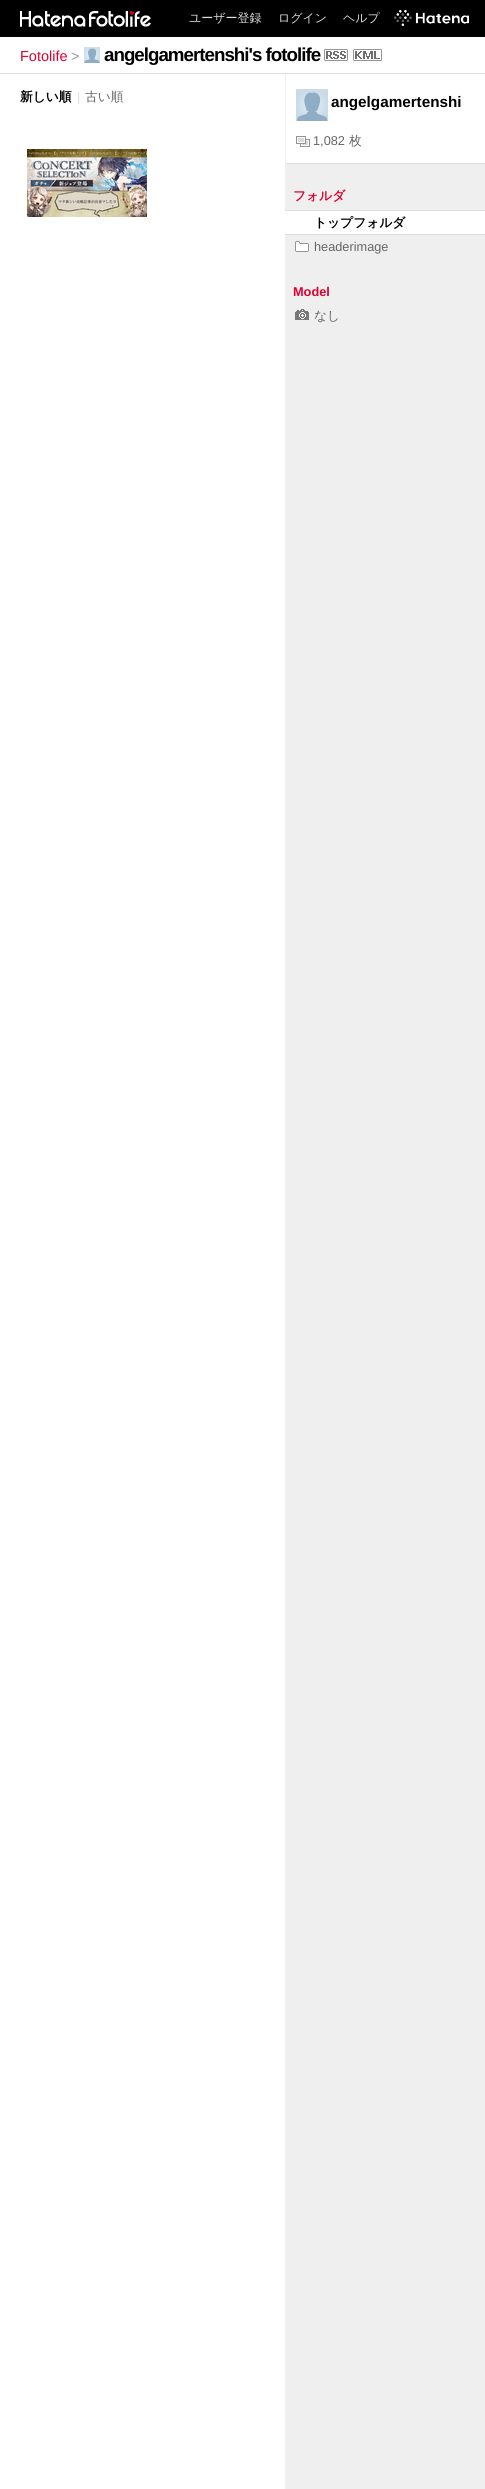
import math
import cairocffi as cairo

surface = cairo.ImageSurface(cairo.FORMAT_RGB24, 485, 2489)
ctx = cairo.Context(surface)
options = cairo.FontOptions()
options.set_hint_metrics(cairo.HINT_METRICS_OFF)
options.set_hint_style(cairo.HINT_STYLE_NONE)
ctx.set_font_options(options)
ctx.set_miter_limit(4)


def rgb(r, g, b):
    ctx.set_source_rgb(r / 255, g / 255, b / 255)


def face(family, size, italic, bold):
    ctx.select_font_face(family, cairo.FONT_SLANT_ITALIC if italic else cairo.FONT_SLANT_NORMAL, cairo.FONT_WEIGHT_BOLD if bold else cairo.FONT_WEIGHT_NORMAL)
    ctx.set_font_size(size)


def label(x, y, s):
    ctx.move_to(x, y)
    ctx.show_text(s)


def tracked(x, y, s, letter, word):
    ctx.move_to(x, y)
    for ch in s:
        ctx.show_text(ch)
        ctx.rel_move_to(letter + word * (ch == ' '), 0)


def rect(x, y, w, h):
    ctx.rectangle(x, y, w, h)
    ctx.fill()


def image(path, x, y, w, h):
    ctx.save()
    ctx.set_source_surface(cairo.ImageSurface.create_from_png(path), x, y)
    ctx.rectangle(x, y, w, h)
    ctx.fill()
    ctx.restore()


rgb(255, 255, 255)
ctx.paint()
rgb(239, 239, 239)
rect(285, 74, 200, 2415)
rgb(0, 0, 0)
rect(0, 0, 485, 37)
image('image0.png', 20, 11, 66, 16)
image('image1.png', 89, 11, 62, 16)
face('WenQuanYi Zen Hei Medium', 12, 0, 0)
rgb(222, 222, 222)
label(189, 22, 'ユーザー登録')
label(278, 22, 'ログイン')
label(343, 22, 'ヘルプ')
image('image2.png', 394, 10, 75, 16)
rect(0, 73, 485, 1)
face('Liberation Sans', 14.5, 0, 0)
rgb(222, 0, 47)
label(20, 61, 'Fotolife')
rgb(153, 153, 153)
label(71, 61, '>')
image('image3.png', 84, 47, 16, 16)
face('Liberation Sans', 18.75, 0, 1)
rgb(0, 0, 0)
tracked(104, 61, 'angelgamertenshi\'s fotolife', -1, 0)
image('image4.png', 324, 49, 24, 12)
image('image5.png', 353, 49, 29, 12)
face('WenQuanYi Zen Hei', 12.75, 0, 1)
label(20, 101, '新しい順')
face('Liberation Sans', 12.75, 0, 0)
rgb(222, 222, 222)
label(77, 101, '|')
face('WenQuanYi Zen Hei Medium', 12.75, 0, 0)
rgb(102, 102, 102)
label(85, 101, '古い順')
image('image6.png', 27, 149, 120, 68)
rgb(255, 255, 255)
rect(286, 74, 199, 89)
rgb(222, 222, 222)
rect(286, 163, 199, 1)
image('image7.png', 296, 89, 32, 32)
face('Liberation Sans', 15.25, 0, 1)
rgb(0, 0, 0)
label(331, 107, 'angelgamertenshi')
image('image8.png', 296, 136, 14, 11)
face('Liberation Sans', 12.75, 0, 0)
rgb(102, 102, 102)
label(313, 145, '1,082')
face('WenQuanYi Zen Hei Medium', 12.75, 0, 0)
label(349, 145, '枚')
face('WenQuanYi Zen Hei', 12.75, 0, 1)
rgb(222, 0, 47)
label(293, 200, 'フォルダ')
rgb(255, 255, 255)
rect(285, 211, 200, 23)
rgb(222, 222, 222)
rect(285, 210, 200, 1)
rect(285, 234, 200, 1)
rgb(0, 0, 0)
label(314, 227, 'トップフォルダ')
image('image9.png', 295, 241, 14, 11)
face('Liberation Sans', 12.75, 0, 0)
rgb(102, 102, 102)
label(314, 251, 'headerimage')
face('Liberation Sans', 12.75, 0, 1)
rgb(222, 0, 47)
label(293, 296, 'Model')
image('image10.png', 295, 309, 14, 11)
face('WenQuanYi Zen Hei Medium', 12.75, 0, 0)
rgb(102, 102, 102)
label(314, 320, 'なし')
surface.write_to_png('render.png')
